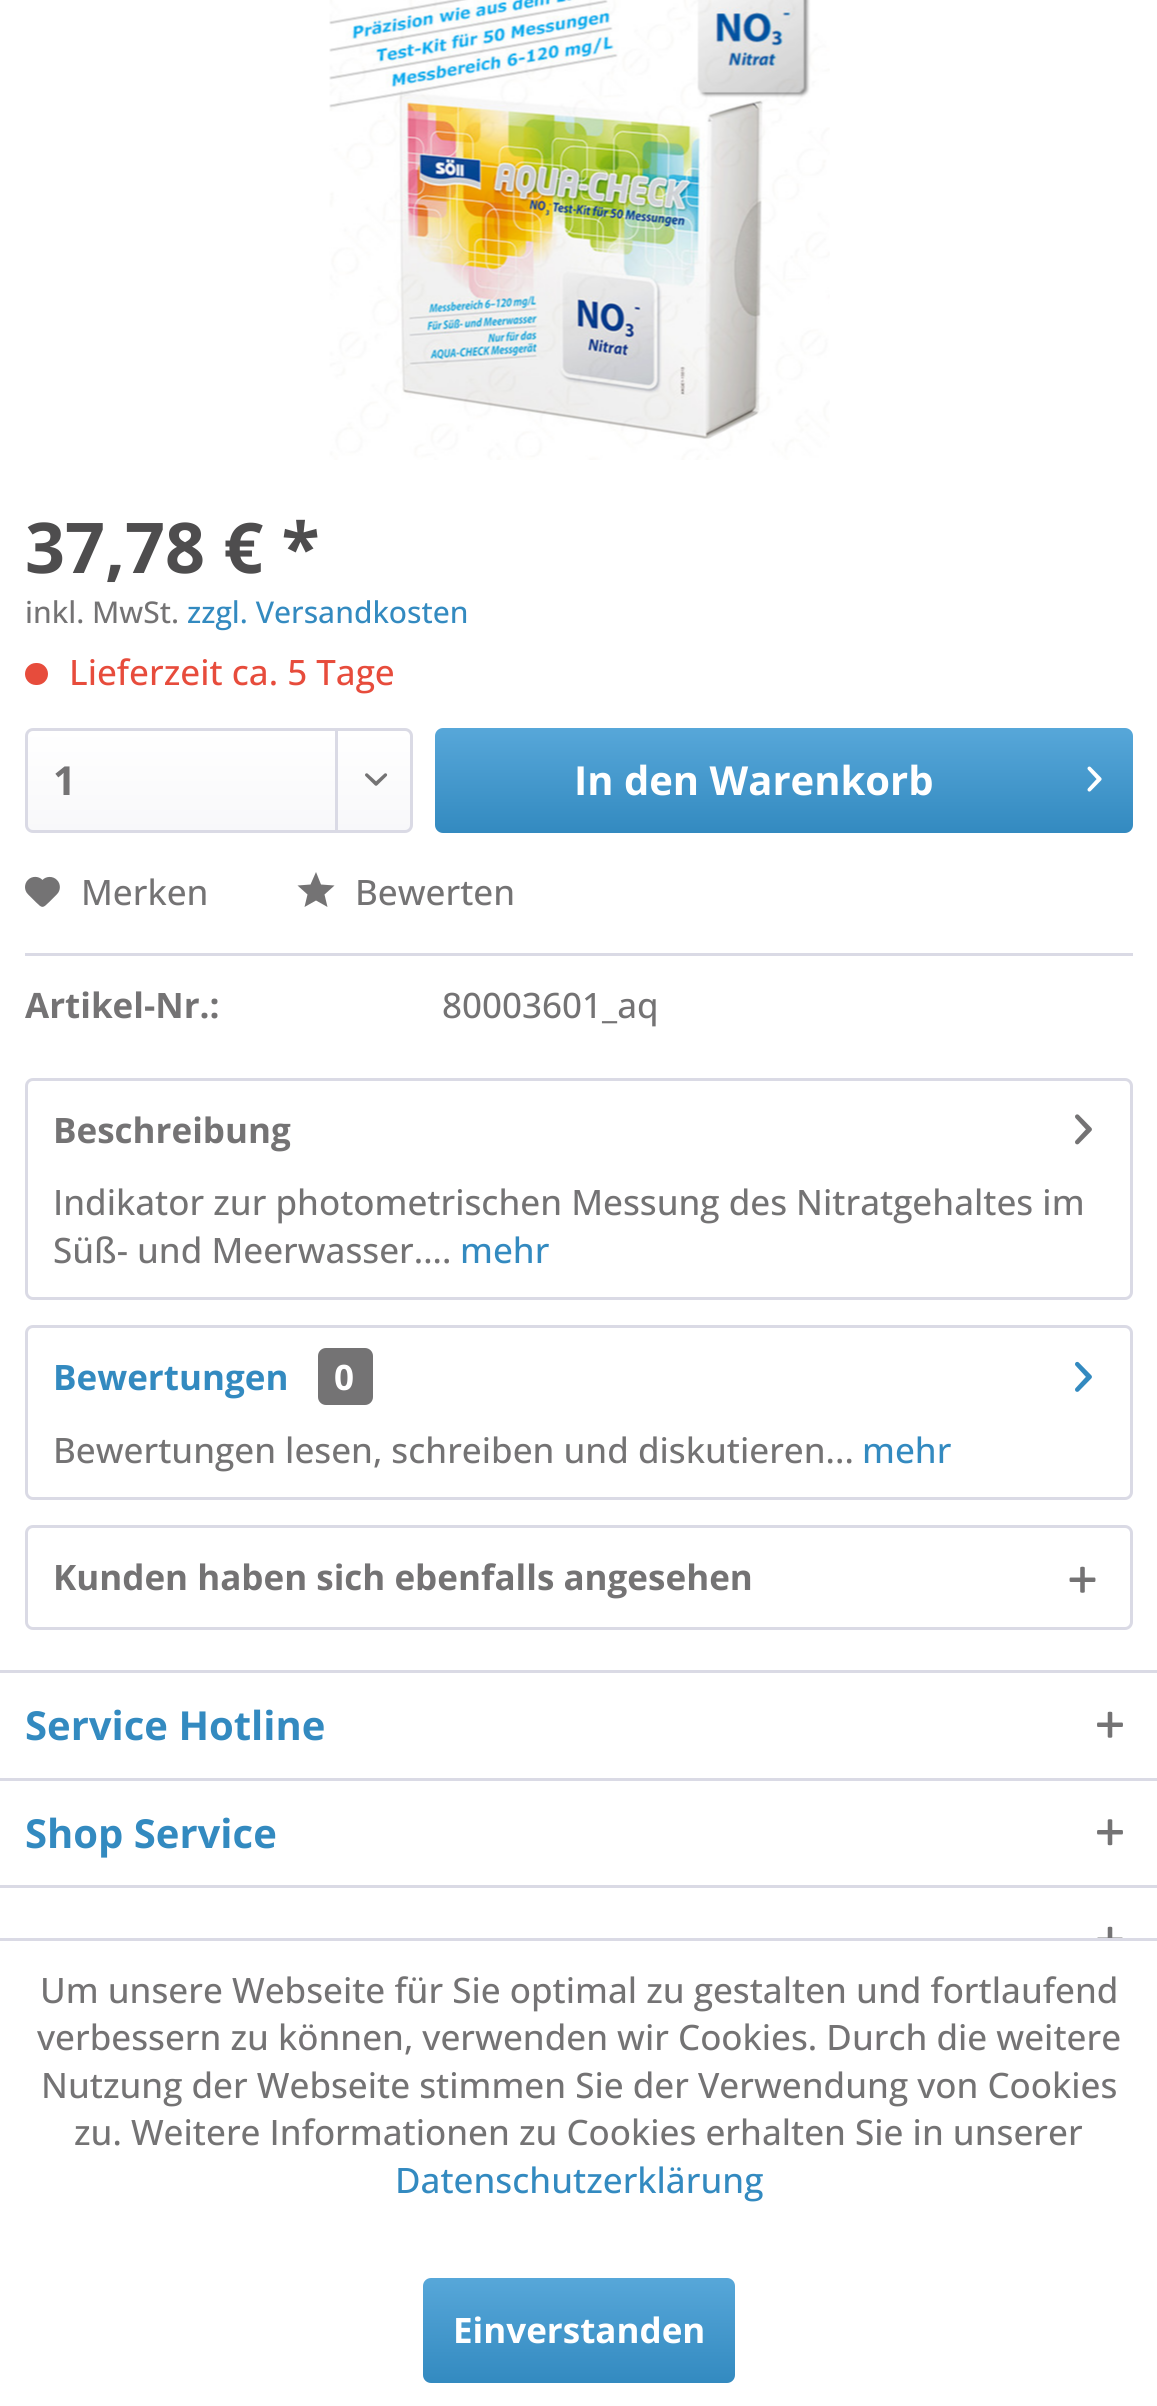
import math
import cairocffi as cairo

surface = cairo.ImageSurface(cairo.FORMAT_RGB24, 1157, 2406)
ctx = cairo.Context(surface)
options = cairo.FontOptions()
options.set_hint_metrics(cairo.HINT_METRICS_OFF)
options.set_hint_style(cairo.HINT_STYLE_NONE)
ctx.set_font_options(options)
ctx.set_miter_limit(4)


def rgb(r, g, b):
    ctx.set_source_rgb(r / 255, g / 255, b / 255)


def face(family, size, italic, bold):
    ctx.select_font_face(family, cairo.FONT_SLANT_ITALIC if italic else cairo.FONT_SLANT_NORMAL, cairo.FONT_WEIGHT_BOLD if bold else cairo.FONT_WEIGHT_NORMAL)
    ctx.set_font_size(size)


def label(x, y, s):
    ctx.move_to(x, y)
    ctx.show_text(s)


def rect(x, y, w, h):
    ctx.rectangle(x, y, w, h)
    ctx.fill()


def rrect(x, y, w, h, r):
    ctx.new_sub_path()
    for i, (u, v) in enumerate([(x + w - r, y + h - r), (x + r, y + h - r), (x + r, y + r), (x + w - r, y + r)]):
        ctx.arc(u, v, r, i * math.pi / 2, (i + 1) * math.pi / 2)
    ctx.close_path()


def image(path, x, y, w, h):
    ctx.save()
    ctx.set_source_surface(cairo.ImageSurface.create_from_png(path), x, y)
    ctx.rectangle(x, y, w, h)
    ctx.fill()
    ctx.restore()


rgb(255, 255, 255)
ctx.paint()
image('image0.png', 329, 0, 501, 460)
face('Open Sans', 70, 0, 1)
rgb(78, 77, 78)
label(25, 573, '37,78 € *')
face('Open Sans Medium', 30, 0, 0)
rgb(116, 115, 116)
label(25, 623, 'inkl. MwSt.')
rgb(51, 138, 192)
label(187, 623, 'zzgl. Versandkosten')
rgb(231, 76, 60)
rrect(25, 663, 23, 22, 11)
ctx.fill()
face('Open Sans Medium', 35, 0, 0)
label(69, 685, 'Lieferzeit ca. 5 Tage')
gradient = cairo.LinearGradient(219, 730, 219, 830)
gradient.add_color_stop_rgba(0, 1, 1, 1, 1)
gradient.add_color_stop_rgba(1, 0.973, 0.973, 0.98, 1)
ctx.set_source(gradient)
rrect(28, 730, 382, 100, 5)
ctx.fill()
rrect(26.5, 729.5, 385, 102, 6.5)
rgb(218, 218, 229)
ctx.set_line_width(3)
ctx.stroke()
face('Open Sans', 40, 0, 1)
rgb(116, 115, 116)
label(53, 795, '1')
rgb(218, 218, 229)
rect(335, 730, 3, 100)
image('image1.png', 365, 773, 23, 13)
gradient = cairo.LinearGradient(784, 728, 784, 833)
gradient.add_color_stop_rgba(0, 0.341, 0.655, 0.851, 1)
gradient.add_color_stop_rgba(1, 0.2, 0.541, 0.753, 1)
ctx.set_source(gradient)
rrect(435, 728, 698, 105, 8)
ctx.fill()
rgb(255, 255, 255)
label(574, 795, 'In den Warenkorb')
image('image2.png', 1087, 766, 15, 26)
rgb(218, 218, 229)
rect(25, 953, 1108, 3)
image('image3.png', 25, 876, 35, 31)
face('Open Sans Medium', 35, 0, 0)
rgb(116, 115, 116)
label(81, 905, 'Merken')
label(355, 905, 'Bewerten')
ctx.new_path()
ctx.move_to(316, 872)
ctx.line_to(310.5, 884.5)
ctx.line_to(297.5, 885.5)
ctx.line_to(307.5, 894.5)
ctx.line_to(304.5, 907)
ctx.line_to(316, 900.5)
ctx.line_to(327.5, 907)
ctx.line_to(324.5, 894.5)
ctx.line_to(334.5, 885.5)
ctx.line_to(321, 884.5)
ctx.close_path()
ctx.fill()
face('Open Sans', 35, 0, 1)
label(25, 1018, 'Artikel-Nr.:')
face('Open Sans Medium', 35, 0, 0)
label(442, 1018, '80003601_aq')
rrect(26.5, 1079.5, 1105, 219, 6.5)
rgb(218, 218, 229)
ctx.stroke()
face('Open Sans', 35, 0, 1)
rgb(116, 115, 116)
label(53, 1143, 'Beschreibung')
image('image4.png', 1075, 1114, 17, 31)
face('Open Sans Medium', 35, 0, 0)
label(53, 1215, 'Indikator zur photometrischen Messung des Nitratgehaltes im')
label(53, 1263, 'Süß- und Meerwasser....')
rgb(51, 138, 192)
label(460, 1263, 'mehr')
rrect(26.5, 1326.5, 1105, 172, 6.5)
rgb(218, 218, 229)
ctx.stroke()
face('Open Sans', 35, 0, 1)
rgb(51, 138, 192)
label(53, 1390, 'Bewertungen')
image('image5.png', 1075, 1361, 17, 31)
rgb(116, 115, 116)
rrect(318, 1348, 55, 57, 8)
ctx.fill()
rgb(255, 255, 255)
label(334, 1390, '0')
face('Open Sans Medium', 35, 0, 0)
rgb(116, 115, 116)
label(53, 1463, 'Bewertungen lesen, schreiben und diskutieren...')
rgb(51, 138, 192)
label(862, 1463, 'mehr')
rrect(26.5, 1526.5, 1105, 102, 6.5)
rgb(218, 218, 229)
ctx.stroke()
face('Open Sans', 35, 0, 1)
rgb(116, 115, 116)
label(53, 1590, 'Kunden haben sich ebenfalls angesehen')
image('image6.png', 1069, 1566, 27, 27)
rgb(218, 218, 229)
rect(0, 1670, 1157, 3)
face('Open Sans', 40, 0, 1)
rgb(51, 138, 192)
label(25, 1740, 'Service Hotline')
image('image7.png', 1097, 1711, 26, 27)
rgb(218, 218, 229)
rect(0, 1778, 1157, 3)
rgb(51, 138, 192)
label(25, 1848, 'Shop Service')
image('image8.png', 1097, 1819, 26, 27)
rgb(218, 218, 229)
rect(0, 1885, 1157, 3)
image('image9.png', 1097, 1926, 26, 12)
rect(0, 1938, 1157, 3)
face('Open Sans Medium', 35, 0, 0)
rgb(116, 115, 116)
label(40, 2003, 'Um unsere Webseite für Sie optimal zu gestalten und fortlaufend')
label(37, 2050, 'verbessern zu können, verwenden wir Cookies. Durch die weitere')
label(41, 2098, 'Nutzung der Webseite stimmen Sie der Verwendung von Cookies')
label(74, 2145, 'zu. Weitere Informationen zu Cookies erhalten Sie in unserer')
rgb(51, 138, 192)
label(395, 2193, 'Datenschutzerklärung')
gradient = cairo.LinearGradient(579, 2278, 579, 2383)
gradient.add_color_stop_rgba(0, 0.341, 0.655, 0.851, 1)
gradient.add_color_stop_rgba(1, 0.2, 0.541, 0.753, 1)
ctx.set_source(gradient)
rrect(423, 2278, 312, 105, 8)
ctx.fill()
face('Open Sans', 35, 0, 1)
rgb(255, 255, 255)
label(453, 2343, 'Einverstanden')
surface.write_to_png('render.png')
